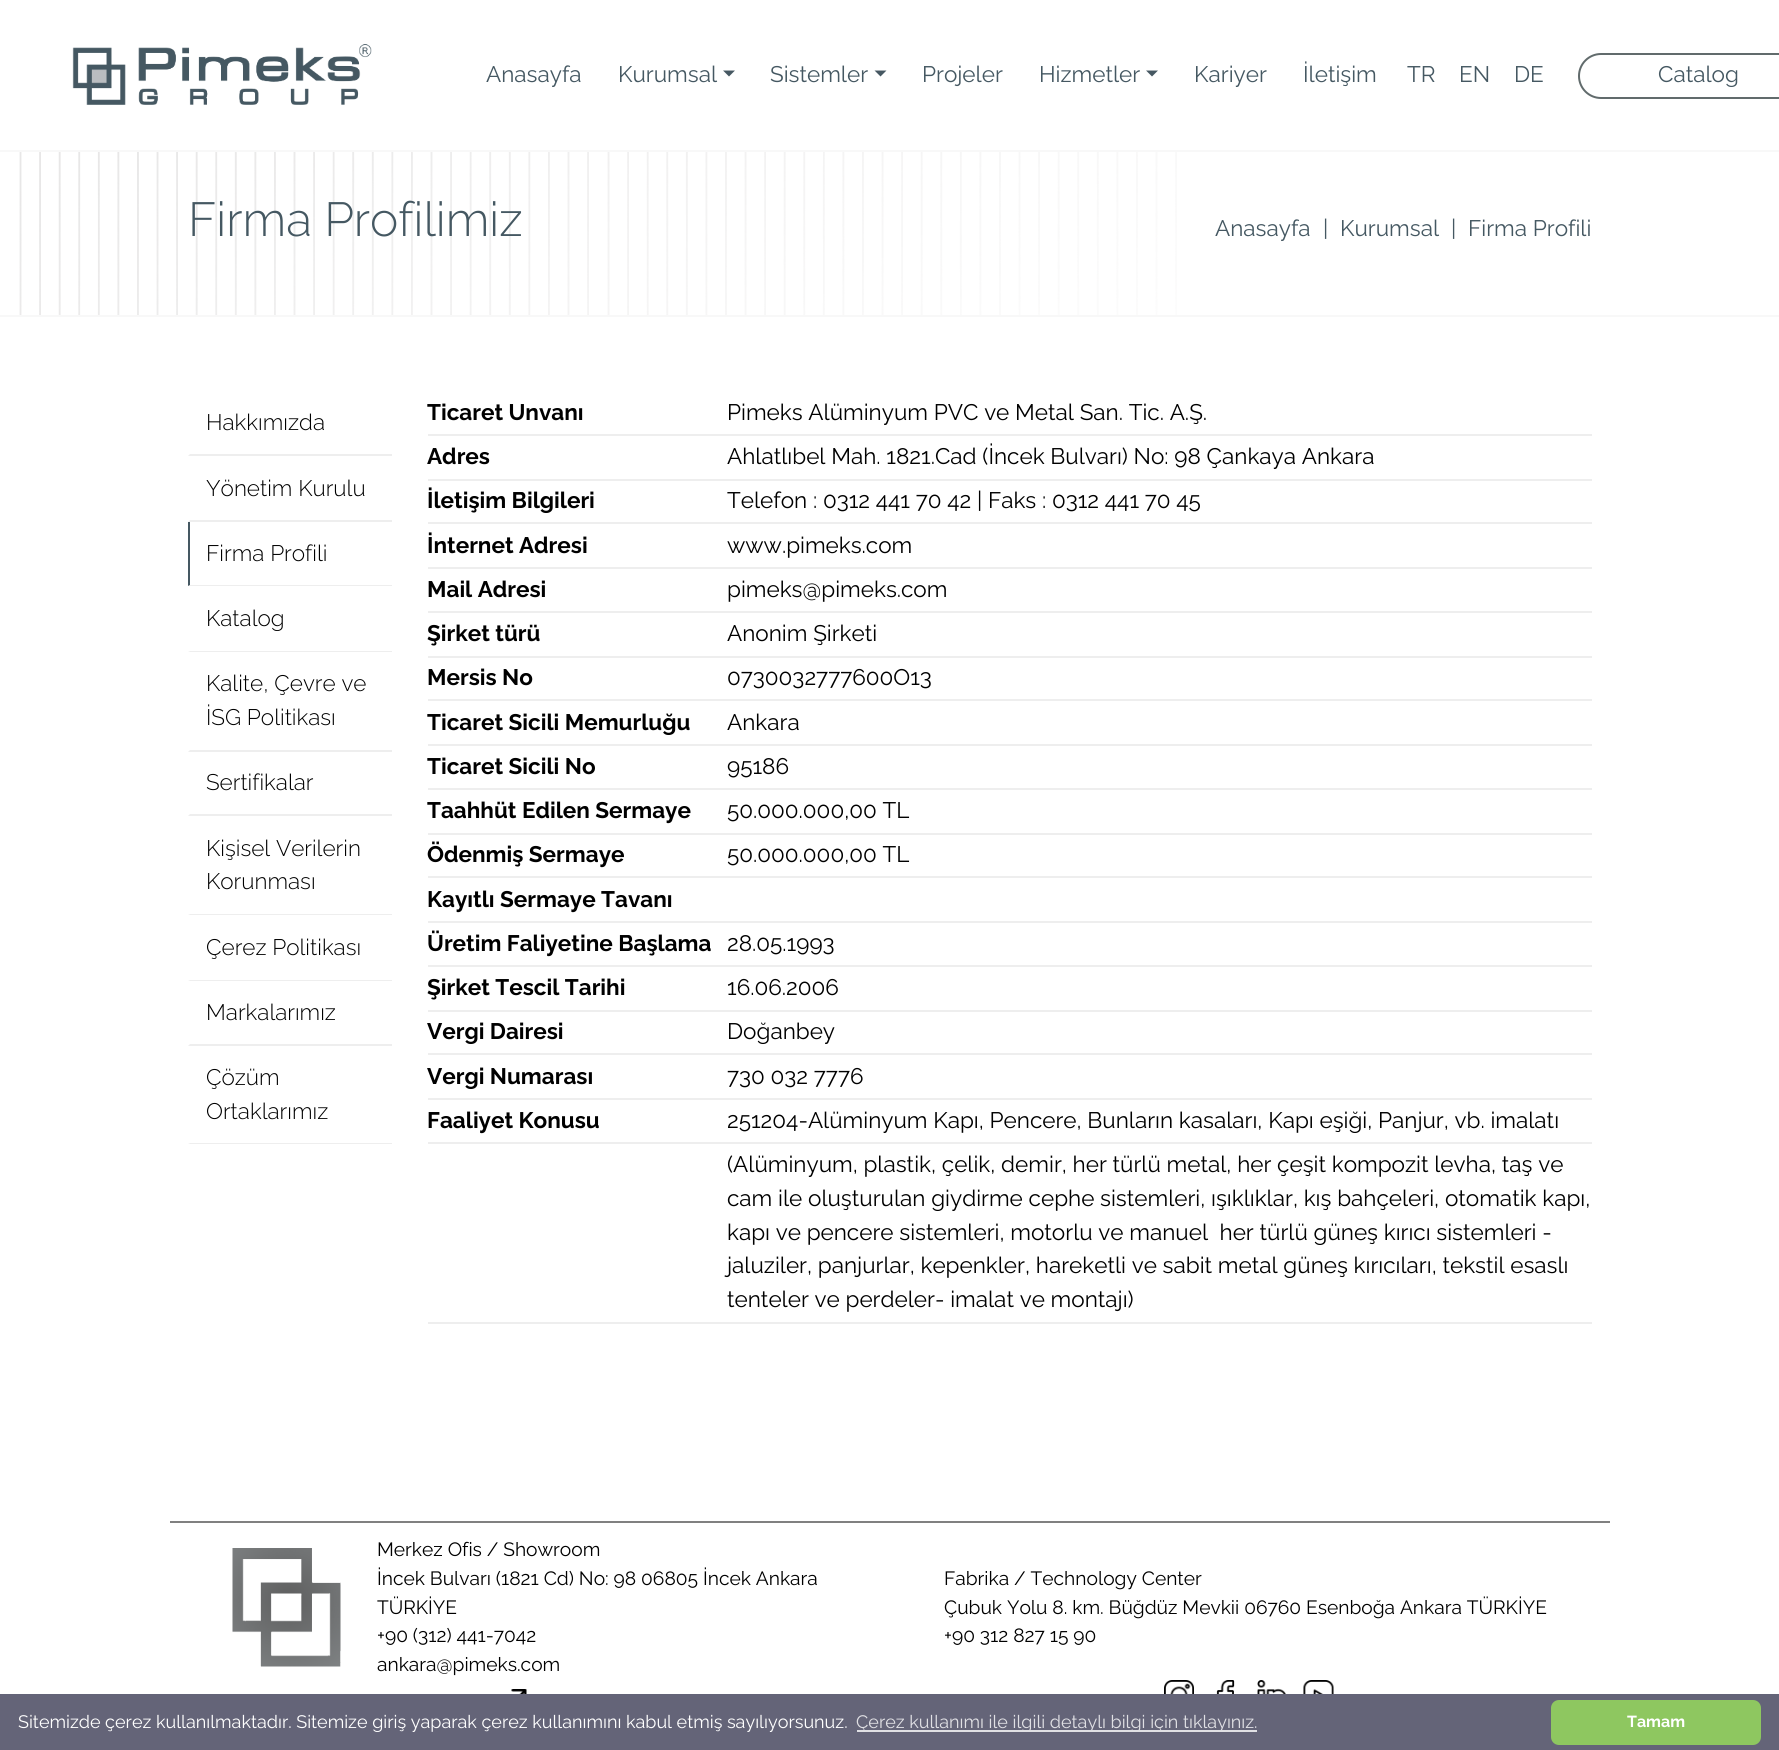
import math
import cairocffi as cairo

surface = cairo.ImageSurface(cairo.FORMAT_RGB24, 1779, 1750)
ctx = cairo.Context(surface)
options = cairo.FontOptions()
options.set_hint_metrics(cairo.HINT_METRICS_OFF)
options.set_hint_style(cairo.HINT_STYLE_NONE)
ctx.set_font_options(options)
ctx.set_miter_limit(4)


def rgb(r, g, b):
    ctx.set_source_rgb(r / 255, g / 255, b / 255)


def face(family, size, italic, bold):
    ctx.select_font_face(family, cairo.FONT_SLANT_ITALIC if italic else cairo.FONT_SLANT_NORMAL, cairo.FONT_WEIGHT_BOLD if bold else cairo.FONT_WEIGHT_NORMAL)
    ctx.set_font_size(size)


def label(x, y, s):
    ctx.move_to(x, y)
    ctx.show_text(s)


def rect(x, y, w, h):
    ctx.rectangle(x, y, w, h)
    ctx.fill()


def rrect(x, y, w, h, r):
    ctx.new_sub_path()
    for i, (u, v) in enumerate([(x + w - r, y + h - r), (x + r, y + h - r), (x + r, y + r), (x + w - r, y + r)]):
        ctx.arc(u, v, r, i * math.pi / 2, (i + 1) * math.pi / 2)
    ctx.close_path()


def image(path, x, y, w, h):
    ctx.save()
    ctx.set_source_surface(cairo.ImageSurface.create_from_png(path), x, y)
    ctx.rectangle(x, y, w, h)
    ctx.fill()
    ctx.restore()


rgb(255, 255, 255)
ctx.paint()
image('image0.png', 72, 44, 300, 61)
face('Raleway', 22.5, 0, 0)
rgb(69, 88, 98)
label(486, 82, 'Anasayfa')
label(618, 82, 'Kurumsal')
rgb(70, 88, 98)
ctx.new_path()
ctx.move_to(723, 70.5)
ctx.line_to(735, 70.5)
ctx.line_to(729, 76.5)
ctx.close_path()
ctx.fill()
rgb(69, 88, 98)
label(770, 82, 'Sistemler')
rgb(70, 88, 98)
ctx.new_path()
ctx.move_to(874.5, 70.5)
ctx.line_to(886.5, 70.5)
ctx.line_to(880.5, 76.5)
ctx.close_path()
ctx.fill()
rgb(69, 88, 98)
label(922, 82, 'Projeler')
label(1039, 82, 'Hizmetler')
rgb(70, 88, 98)
ctx.new_path()
ctx.move_to(1146, 70.5)
ctx.line_to(1158, 70.5)
ctx.line_to(1152, 76.5)
ctx.close_path()
ctx.fill()
rgb(69, 88, 98)
label(1194, 82, 'Kariyer')
label(1303, 82, 'İletişim')
label(1407, 82, 'TR')
label(1459, 82, 'EN')
label(1514, 82, 'DE')
rrect(1579, 54, 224, 44, 22)
rgb(97, 107, 108)
ctx.stroke()
rgb(69, 88, 98)
label(1658, 82, 'Catalog')
image('image1.png', 19, 152, 1158, 163)
rgb(248, 248, 248)
rect(0, 150, 1779, 2)
rect(0, 315, 1779, 2)
face('Raleway Light', 47.75, 0, 0)
rgb(69, 88, 98)
label(188, 236, 'Firma Profilimiz')
face('Raleway', 22.5, 0, 0)
label(1215, 236, 'Anasayfa')
label(1323, 236, '|')
label(1340, 236, 'Kurumsal')
label(1451, 236, '|')
label(1468, 236, 'Firma Profili')
rgb(238, 238, 238)
ctx.new_path()
ctx.move_to(392, 456)
ctx.line_to(188, 456)
ctx.line_to(190, 454)
ctx.line_to(392, 454)
ctx.close_path()
ctx.fill()
face('Raleway Light', 22.5, 0, 0)
rgb(0, 0, 0)
label(206, 430, 'Hakkımızda')
rgb(238, 238, 238)
ctx.new_path()
ctx.move_to(392, 522)
ctx.line_to(188, 522)
ctx.line_to(190, 520)
ctx.line_to(392, 520)
ctx.close_path()
ctx.fill()
rgb(0, 0, 0)
label(206, 496, 'Yönetim Kurulu')
rgb(238, 238, 238)
ctx.new_path()
ctx.move_to(392, 586)
ctx.line_to(188, 586)
ctx.line_to(190, 585)
ctx.line_to(392, 585)
ctx.close_path()
ctx.fill()
rgb(69, 88, 98)
ctx.new_path()
ctx.move_to(188, 586)
ctx.line_to(188, 522)
ctx.line_to(190, 522)
ctx.line_to(190, 585)
ctx.close_path()
ctx.fill()
rgb(0, 0, 0)
label(206, 561, 'Firma Profili')
rgb(238, 238, 238)
ctx.new_path()
ctx.move_to(392, 652)
ctx.line_to(188, 652)
ctx.line_to(190, 651)
ctx.line_to(392, 651)
ctx.close_path()
ctx.fill()
rgb(0, 0, 0)
label(206, 626, 'Katalog')
rgb(238, 238, 238)
ctx.new_path()
ctx.move_to(392, 752)
ctx.line_to(188, 752)
ctx.line_to(190, 750)
ctx.line_to(392, 750)
ctx.close_path()
ctx.fill()
rgb(0, 0, 0)
label(206, 691, 'Kalite, Çevre ve')
label(206, 725, 'İSG Politikası')
rgb(238, 238, 238)
ctx.new_path()
ctx.move_to(392, 816)
ctx.line_to(188, 816)
ctx.line_to(190, 814)
ctx.line_to(392, 814)
ctx.close_path()
ctx.fill()
rgb(0, 0, 0)
label(206, 790, 'Sertifikalar')
rgb(238, 238, 238)
ctx.new_path()
ctx.move_to(392, 915)
ctx.line_to(188, 915)
ctx.line_to(190, 914)
ctx.line_to(392, 914)
ctx.close_path()
ctx.fill()
rgb(0, 0, 0)
label(206, 856, 'Kişisel Verilerin')
label(206, 889, 'Korunması')
rgb(238, 238, 238)
ctx.new_path()
ctx.move_to(392, 981)
ctx.line_to(188, 981)
ctx.line_to(190, 980)
ctx.line_to(392, 980)
ctx.close_path()
ctx.fill()
rgb(0, 0, 0)
label(206, 955, 'Çerez Politikası')
rgb(238, 238, 238)
ctx.new_path()
ctx.move_to(392, 1046)
ctx.line_to(188, 1046)
ctx.line_to(190, 1044)
ctx.line_to(392, 1044)
ctx.close_path()
ctx.fill()
rgb(0, 0, 0)
label(206, 1020, 'Markalarımız')
rgb(238, 238, 238)
ctx.new_path()
ctx.move_to(392, 1144)
ctx.line_to(188, 1144)
ctx.line_to(190, 1143)
ctx.line_to(392, 1143)
ctx.close_path()
ctx.fill()
rgb(0, 0, 0)
label(206, 1085, 'Çözüm')
label(206, 1119, 'Ortaklarımız')
rgb(238, 238, 238)
rect(428, 434, 1164, 2)
face('Raleway', 22.5, 0, 1)
rgb(0, 0, 0)
label(427, 420, 'Ticaret Unvanı')
face('Raleway', 22.5, 0, 0)
label(727, 420, 'Pimeks Alüminyum PVC ve Metal San. Tic. A.Ş.')
rgb(238, 238, 238)
rect(428, 479, 1164, 2)
face('Raleway', 22.5, 0, 1)
rgb(0, 0, 0)
label(427, 464, 'Adres')
face('Raleway', 22.5, 0, 0)
label(727, 464, 'Ahlatlıbel Mah. 1821.Cad (İncek Bulvarı) No: 98 Çankaya Ankara')
rgb(238, 238, 238)
rect(428, 522, 1164, 2)
face('Raleway', 22.5, 0, 1)
rgb(0, 0, 0)
label(427, 508, 'İletişim Bilgileri')
face('Raleway', 22.5, 0, 0)
label(727, 508, 'Telefon : 0312 441 70 42 | Faks : 0312 441 70 45')
rgb(238, 238, 238)
rect(428, 567, 1164, 2)
face('Raleway', 22.5, 0, 1)
rgb(0, 0, 0)
label(427, 553, 'İnternet Adresi')
face('Raleway', 22.5, 0, 0)
label(727, 553, 'www.pimeks.com')
rgb(238, 238, 238)
rect(428, 611, 1164, 2)
face('Raleway', 22.5, 0, 1)
rgb(0, 0, 0)
label(427, 597, 'Mail Adresi')
face('Raleway', 22.5, 0, 0)
label(727, 597, 'pimeks@pimeks.com')
rgb(238, 238, 238)
rect(428, 656, 1164, 2)
face('Raleway', 22.5, 0, 1)
rgb(0, 0, 0)
label(427, 641, 'Şirket türü')
face('Raleway', 22.5, 0, 0)
label(727, 641, 'Anonim Şirketi')
rgb(238, 238, 238)
rect(428, 699, 1164, 2)
face('Raleway', 22.5, 0, 1)
rgb(0, 0, 0)
label(427, 685, 'Mersis No')
face('Raleway', 22.5, 0, 0)
label(727, 685, '0730032777600O13')
rgb(238, 238, 238)
rect(428, 744, 1164, 2)
face('Raleway', 22.5, 0, 1)
rgb(0, 0, 0)
label(427, 730, 'Ticaret Sicili Memurluğu')
face('Raleway', 22.5, 0, 0)
label(727, 730, 'Ankara')
rgb(238, 238, 238)
rect(428, 788, 1164, 2)
face('Raleway', 22.5, 0, 1)
rgb(0, 0, 0)
label(427, 774, 'Ticaret Sicili No')
face('Raleway', 22.5, 0, 0)
label(727, 774, '95186')
rgb(238, 238, 238)
rect(428, 833, 1164, 2)
face('Raleway', 22.5, 0, 1)
rgb(0, 0, 0)
label(427, 818, 'Taahhüt Edilen Sermaye')
face('Raleway', 22.5, 0, 0)
label(727, 818, '50.000.000,00 TL')
rgb(238, 238, 238)
rect(428, 876, 1164, 2)
face('Raleway', 22.5, 0, 1)
rgb(0, 0, 0)
label(427, 862, 'Ödenmiş Sermaye')
face('Raleway', 22.5, 0, 0)
label(727, 862, '50.000.000,00 TL')
rgb(238, 238, 238)
rect(428, 921, 1164, 2)
face('Raleway', 22.5, 0, 1)
rgb(0, 0, 0)
label(427, 907, 'Kayıtlı Sermaye Tavanı')
rgb(238, 238, 238)
rect(428, 965, 1164, 2)
rgb(0, 0, 0)
label(427, 951, 'Üretim Faliyetine Başlama')
face('Raleway', 22.5, 0, 0)
label(727, 951, '28.05.1993')
rgb(238, 238, 238)
rect(428, 1010, 1164, 2)
face('Raleway', 22.5, 0, 1)
rgb(0, 0, 0)
label(427, 995, 'Şirket Tescil Tarihi')
face('Raleway', 22.5, 0, 0)
label(727, 995, '16.06.2006')
rgb(238, 238, 238)
rect(428, 1053, 1164, 2)
face('Raleway', 22.5, 0, 1)
rgb(0, 0, 0)
label(427, 1039, 'Vergi Dairesi')
face('Raleway', 22.5, 0, 0)
label(727, 1039, 'Doğanbey')
rgb(238, 238, 238)
rect(428, 1098, 1164, 2)
face('Raleway', 22.5, 0, 1)
rgb(0, 0, 0)
label(427, 1084, 'Vergi Numarası')
face('Raleway', 22.5, 0, 0)
label(727, 1084, '730 032 7776')
rgb(238, 238, 238)
rect(428, 1142, 1164, 2)
face('Raleway', 22.5, 0, 1)
rgb(0, 0, 0)
label(427, 1128, 'Faaliyet Konusu')
face('Raleway', 22.5, 0, 0)
label(727, 1128, '251204-Alüminyum Kapı, Pencere, Bunların kasaları, Kapı eşiği, Panjur, vb. imalatı')
rgb(238, 238, 238)
rect(428, 1322, 1164, 2)
rgb(0, 0, 0)
label(727, 1172, '(Alüminyum, plastik, çelik, demir, her türlü metal, her çeşit kompozit levha, taş ve')
label(727, 1206, 'cam ile oluşturulan giydirme cephe sistemleri, ışıklıklar, kış bahçeleri, otomatik kapı,')
label(727, 1240, 'kapı ve pencere sistemleri, motorlu ve manuel  her türlü güneş kırıcı sistemleri -')
label(727, 1273, 'jaluziler, panjurlar, kepenkler, hareketli ve sabit metal güneş kırıcıları, tekstil esaslı')
label(727, 1307, 'tenteler ve perdeler- imalat ve montajı)')
rgb(128, 128, 128)
rect(170, 1521, 1440, 2)
image('image2.png', 232, 1548, 109, 119)
face('Raleway', 19.2, 0, 0)
rgb(0, 0, 0)
label(377, 1556, 'Merkez Ofis / Showroom')
label(377, 1585, 'İncek Bulvarı (1821 Cd) No: 98 06805 İncek Ankara')
label(377, 1614, 'TÜRKİYE')
label(377, 1642, '+90 (312) 441-7042')
label(377, 1671, 'ankara@pimeks.com')
label(944, 1585, 'Fabrika / Technology Center')
label(944, 1614, 'Çubuk Yolu 8. km. Büğdüz Mevkii 06760 Esenboğa Ankara TÜRKİYE')
label(944, 1642, '+90 312 827 15 90')
image('image3.png', 511, 1689, 16, 5)
image('image4.png', 1164, 1680, 30, 14)
image('image5.png', 1216, 1680, 19, 14)
image('image6.png', 1257, 1680, 29, 14)
image('image7.png', 1303, 1680, 31, 14)
rgb(100, 100, 120)
rect(0, 1694, 1779, 56)
face('Raleway', 18, 0, 0)
rgb(255, 255, 255)
label(18, 1728, 'Sitemizde çerez kullanılmaktadır. Sitemize giriş yaparak çerez kullanımını kabul etmiş sayılıyorsunuz.')
rgb(224, 224, 228)
rect(857, 1730, 400, 2)
label(856, 1728, 'Çerez kullanımı ile ilgili detaylı bilgi için tıklayınız.')
rgb(142, 199, 96)
rrect(1551, 1700, 210, 45, 8)
ctx.fill()
face('Raleway', 16, 0, 1)
rgb(255, 255, 255)
label(1627, 1727, 'Tamam')
surface.write_to_png('render.png')
